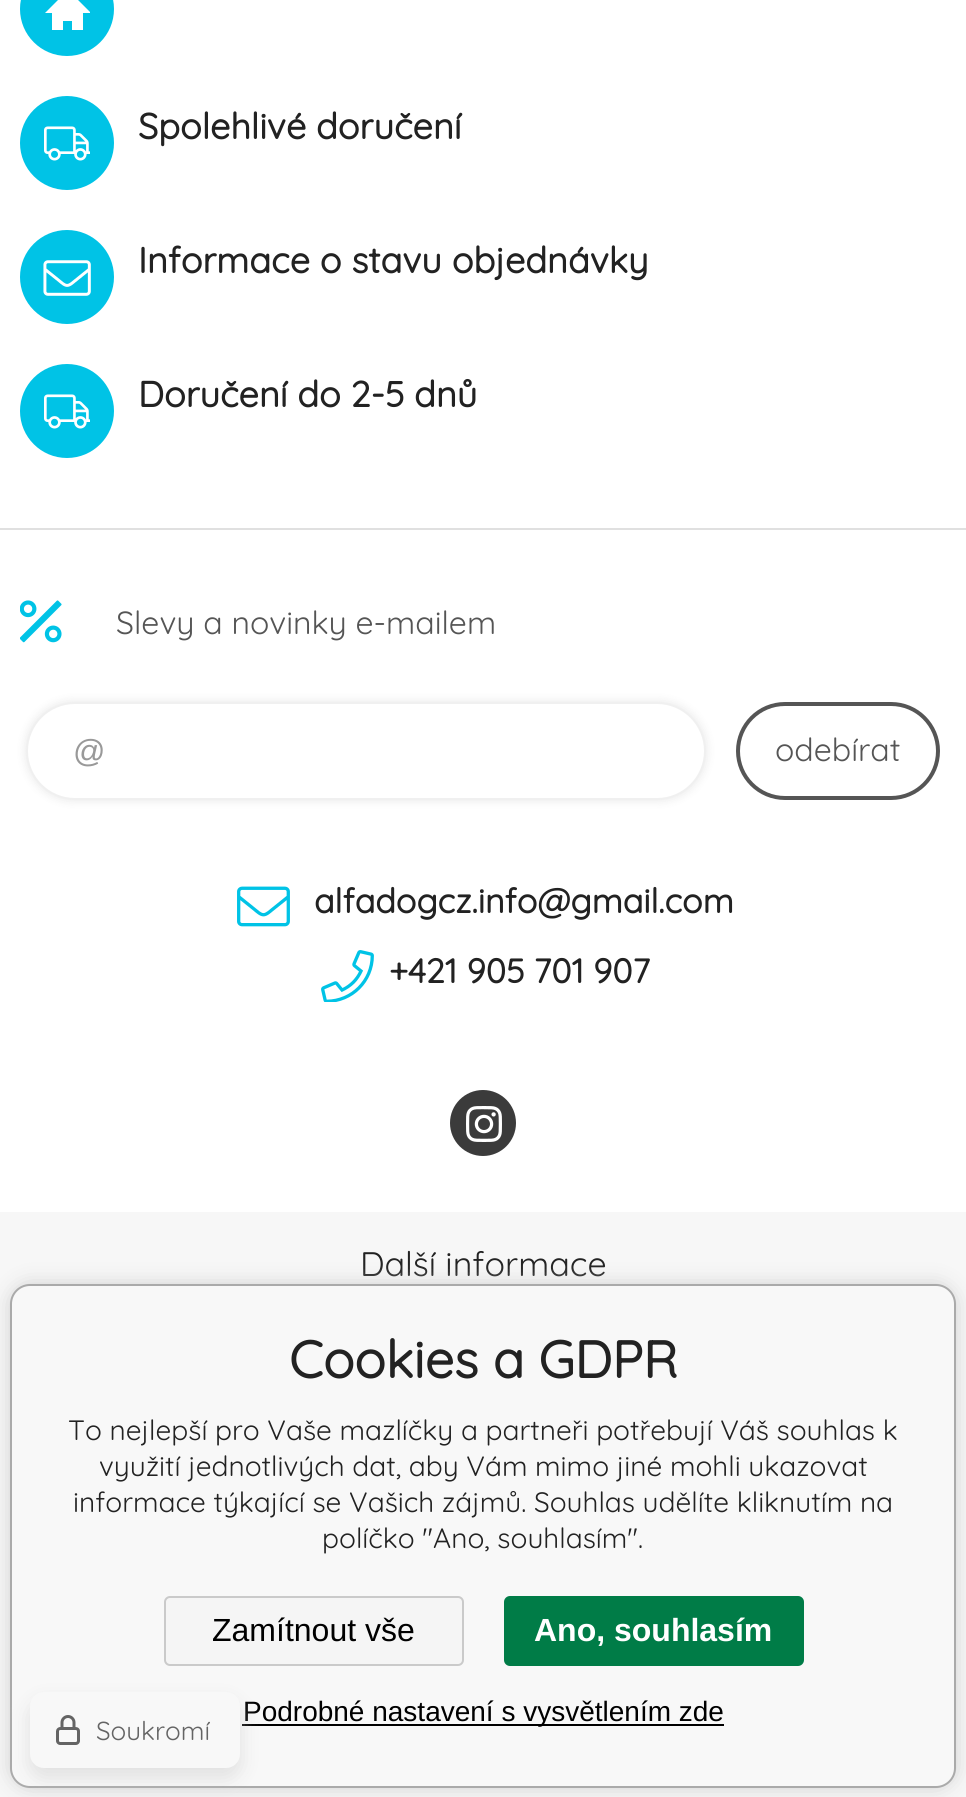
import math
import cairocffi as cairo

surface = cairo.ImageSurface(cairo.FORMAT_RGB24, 966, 1797)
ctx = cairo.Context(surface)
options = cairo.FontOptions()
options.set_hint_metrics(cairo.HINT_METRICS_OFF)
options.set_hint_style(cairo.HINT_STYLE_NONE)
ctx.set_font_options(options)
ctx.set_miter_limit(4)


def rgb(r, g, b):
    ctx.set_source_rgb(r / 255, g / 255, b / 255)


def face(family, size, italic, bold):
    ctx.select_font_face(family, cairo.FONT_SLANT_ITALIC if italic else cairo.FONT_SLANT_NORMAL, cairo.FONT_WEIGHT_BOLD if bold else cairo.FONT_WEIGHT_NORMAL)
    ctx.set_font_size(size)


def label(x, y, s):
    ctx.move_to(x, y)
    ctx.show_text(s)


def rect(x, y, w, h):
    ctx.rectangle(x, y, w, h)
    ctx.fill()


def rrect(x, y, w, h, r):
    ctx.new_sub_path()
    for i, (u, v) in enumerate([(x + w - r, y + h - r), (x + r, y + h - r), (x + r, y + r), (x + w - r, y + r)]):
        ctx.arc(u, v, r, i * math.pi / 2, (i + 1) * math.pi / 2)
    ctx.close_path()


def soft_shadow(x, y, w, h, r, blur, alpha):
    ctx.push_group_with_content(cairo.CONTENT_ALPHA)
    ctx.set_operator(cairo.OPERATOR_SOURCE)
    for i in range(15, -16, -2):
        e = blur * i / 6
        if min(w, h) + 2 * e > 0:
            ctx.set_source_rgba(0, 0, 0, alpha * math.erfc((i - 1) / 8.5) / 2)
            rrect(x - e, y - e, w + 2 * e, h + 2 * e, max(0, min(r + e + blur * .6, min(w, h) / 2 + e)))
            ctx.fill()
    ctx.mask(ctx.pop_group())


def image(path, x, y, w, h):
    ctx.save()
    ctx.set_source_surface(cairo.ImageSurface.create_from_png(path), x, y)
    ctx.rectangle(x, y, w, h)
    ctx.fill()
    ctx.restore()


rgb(255, 255, 255)
ctx.paint()
rgb(0, 195, 230)
ctx.arc(67, 9, 47, 0, 2 * math.pi)
ctx.fill()
ctx.save()
ctx.rectangle(44, 0, 46, 30)
ctx.clip()
rgb(255, 255, 255)
ctx.new_path()
ctx.move_to(68, -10)
ctx.line_to(45, 13)
ctx.line_to(52, 13)
ctx.line_to(52, 31)
ctx.line_to(63, 31)
ctx.line_to(63, 21)
ctx.line_to(72, 21)
ctx.line_to(72, 31)
ctx.line_to(83, 31)
ctx.line_to(83, 13)
ctx.line_to(91, 13)
ctx.close_path()
ctx.fill()
ctx.restore()
ctx.arc(67, 143, 47, 0, 2 * math.pi)
ctx.fill()
image('image0.png', 44, 126, 46, 35)
face('Quicksand', 36, 0, 1)
rgb(34, 34, 34)
label(138, 139, 'Spolehlivé doručení')
rgb(0, 195, 230)
ctx.new_path()
ctx.arc(67, 277, 47, 0, 2 * math.pi)
ctx.fill()
image('image1.png', 43, 260, 48, 36)
rgb(34, 34, 34)
label(138, 273, 'Informace o stavu objednávky')
rgb(0, 195, 230)
ctx.new_path()
ctx.arc(67, 411, 47, 0, 2 * math.pi)
ctx.fill()
image('image0.png', 44, 394, 46, 35)
rgb(34, 34, 34)
label(138, 407, 'Doručení do 2-5 dnů')
rgb(224, 224, 224)
rect(0, 528, 966, 2)
image('image2.png', 20, 600, 42, 43)
face('Quicksand Light', 32, 0, 0)
rgb(85, 85, 85)
label(116, 634, 'Slevy a novinky e-mailem')
rgb(0, 0, 0)
soft_shadow(26, 702, 680, 98, 49, 5, 0.1)
rgb(255, 255, 255)
rrect(27, 703, 678, 96, 48)
ctx.fill_preserve()
rgb(240, 240, 240)
ctx.stroke()
face('Liberation Sans', 32, 0, 0)
rgb(153, 153, 153)
label(73, 762, '@')
rrect(738, 704, 200, 94, 47)
rgb(85, 85, 85)
ctx.set_line_width(4)
ctx.stroke()
face('Quicksand Light', 32, 0, 0)
label(775, 761, 'odebírat')
image('image3.png', 237, 886, 53, 41)
face('Quicksand', 34, 0, 1)
rgb(34, 34, 34)
label(314, 913, 'alfadogcz.info@gmail.com')
image('image4.png', 321, 950, 53, 52)
label(389, 983, '+421 905 701 907')
rgb(247, 247, 247)
rect(0, 1212, 966, 585)
rgb(59, 59, 59)
ctx.new_path()
ctx.arc(483, 1123, 33, 0, 2 * math.pi)
ctx.fill()
image('image5.png', 466, 1106, 36, 36)
face('Quicksand Light', 34, 0, 0)
rgb(34, 34, 34)
label(360, 1276, 'Další informace')
rgb(200, 200, 200)
soft_shadow(10, 1284, 946, 504, 20, 10, 0.8)
rgb(248, 248, 248)
rrect(11, 1285, 944, 502, 19)
ctx.fill_preserve()
rgb(170, 170, 170)
ctx.set_line_width(2)
ctx.stroke()
face('Quicksand', 52, 0, 1)
rgb(34, 34, 34)
label(289, 1378, 'Cookies a GDPR')
face('Quicksand Light', 28, 0, 0)
label(68, 1440, 'To nejlepší pro Vaše mazlíčky a partneři potřebují Váš souhlas k')
label(99, 1476, 'využití jednotlivých dat, aby Vám mimo jiné mohli ukazovat')
label(73, 1512, 'informace týkající se Vašich zájmů. Souhlas udělíte kliknutím na')
label(322, 1548, 'políčko "Ano, souhlasím".')
rgb(245, 245, 245)
rrect(165, 1597, 298, 68, 5)
ctx.fill_preserve()
rgb(202, 202, 202)
ctx.stroke()
face('Liberation Sans', 32, 0, 0)
rgb(0, 0, 0)
label(212, 1641, 'Zamítnout vše')
rgb(0, 124, 71)
rrect(505, 1597, 298, 68, 5)
ctx.fill_preserve()
ctx.stroke()
face('Liberation Sans', 32, 0, 1)
rgb(255, 255, 255)
label(534, 1641, 'Ano, souhlasím')
rgb(0, 0, 0)
rect(242, 1724, 482, 2)
face('Liberation Sans', 28, 0, 0)
label(243, 1721, 'Podrobné nastavení s vysvětlením zde')
rgb(200, 200, 200)
soft_shadow(30, 1702, 210, 76, 14, 10, 0.5)
rgb(248, 248, 248)
rrect(30, 1692, 210, 76, 14)
ctx.fill()
image('image6.png', 56, 1715, 24, 30)
face('Quicksand Light', 26, 0, 0)
rgb(100, 100, 100)
label(96, 1740, 'Soukromí')
surface.write_to_png('render.png')
